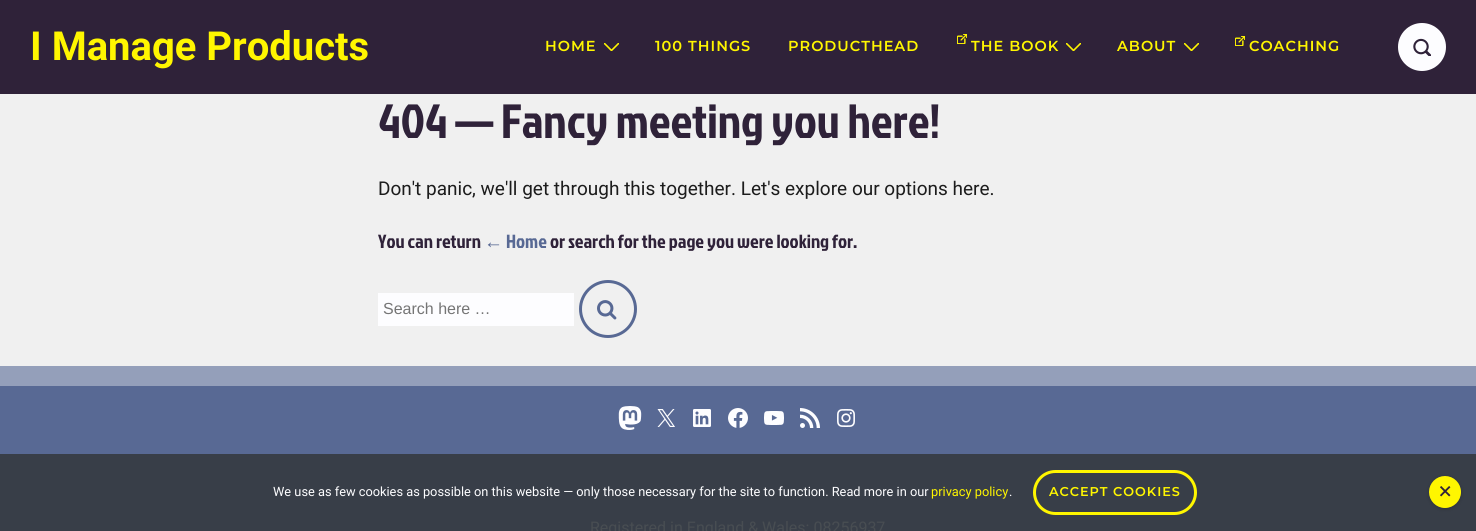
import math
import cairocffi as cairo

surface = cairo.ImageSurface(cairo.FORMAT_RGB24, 1476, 531)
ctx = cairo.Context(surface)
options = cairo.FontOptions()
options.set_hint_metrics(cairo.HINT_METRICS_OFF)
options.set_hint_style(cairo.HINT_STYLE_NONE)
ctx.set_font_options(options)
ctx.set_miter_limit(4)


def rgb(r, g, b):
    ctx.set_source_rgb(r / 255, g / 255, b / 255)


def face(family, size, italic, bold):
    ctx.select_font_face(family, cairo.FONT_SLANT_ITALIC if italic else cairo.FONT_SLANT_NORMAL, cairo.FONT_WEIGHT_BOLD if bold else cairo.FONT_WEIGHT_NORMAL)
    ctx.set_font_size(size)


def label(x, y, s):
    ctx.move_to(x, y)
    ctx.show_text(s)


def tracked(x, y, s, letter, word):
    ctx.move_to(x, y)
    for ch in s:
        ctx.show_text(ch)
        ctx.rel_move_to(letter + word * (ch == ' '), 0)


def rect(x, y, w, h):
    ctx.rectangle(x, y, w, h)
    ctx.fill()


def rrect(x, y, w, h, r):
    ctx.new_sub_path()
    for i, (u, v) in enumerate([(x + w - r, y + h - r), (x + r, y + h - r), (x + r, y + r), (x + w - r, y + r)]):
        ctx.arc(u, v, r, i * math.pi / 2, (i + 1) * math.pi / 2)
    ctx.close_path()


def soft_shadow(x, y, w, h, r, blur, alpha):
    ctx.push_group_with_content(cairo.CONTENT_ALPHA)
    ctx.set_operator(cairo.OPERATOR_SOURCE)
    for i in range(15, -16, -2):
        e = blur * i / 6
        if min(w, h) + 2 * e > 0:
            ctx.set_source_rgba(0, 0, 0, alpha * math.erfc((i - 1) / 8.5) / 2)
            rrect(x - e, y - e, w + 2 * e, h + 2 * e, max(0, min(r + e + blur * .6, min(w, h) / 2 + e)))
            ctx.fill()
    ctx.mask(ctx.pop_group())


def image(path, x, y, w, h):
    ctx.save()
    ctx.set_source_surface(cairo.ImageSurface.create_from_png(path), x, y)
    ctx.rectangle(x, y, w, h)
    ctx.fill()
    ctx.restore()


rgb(240, 240, 240)
ctx.paint()
rgb(47, 34, 57)
rect(0, 0, 1476, 94)
face('Roboto', 40, 0, 1)
rgb(255, 246, 0)
label(30, 60, 'I Manage Products')
face('Montserrat SemiBold', 14.5, 0, 0)
tracked(545, 51, 'HOME', 1, 0)
ctx.save()
ctx.rectangle(604, 43, 15, 8)
ctx.clip()
ctx.new_path()
ctx.move_to(604.5, 43.5)
ctx.line_to(611.5, 50.5)
ctx.line_to(618.5, 43.5)
ctx.set_line_width(1.6)
ctx.set_line_cap(cairo.LINE_CAP_ROUND)
ctx.stroke()
ctx.restore()
tracked(655, 51, '100 THINGS', 1, 0)
tracked(788, 51, 'PRODUCTHEAD', 1, 0)
image('image0.png', 957, 34, 10, 10)
tracked(971, 51, 'THE BOOK', 1, 0)
ctx.save()
ctx.rectangle(1066, 43, 15, 8)
ctx.clip()
ctx.new_path()
ctx.move_to(1066.5, 43.5)
ctx.line_to(1073.5, 50.5)
ctx.line_to(1080.5, 43.5)
ctx.set_line_width(1.6)
ctx.set_line_cap(cairo.LINE_CAP_ROUND)
ctx.stroke()
ctx.restore()
tracked(1117, 51, 'ABOUT', 1, 0)
ctx.save()
ctx.rectangle(1184, 43, 15, 8)
ctx.clip()
ctx.new_path()
ctx.move_to(1184.5, 43.5)
ctx.line_to(1191.5, 50.5)
ctx.line_to(1198.5, 43.5)
ctx.set_line_width(1.6)
ctx.set_line_cap(cairo.LINE_CAP_ROUND)
ctx.stroke()
ctx.restore()
image('image0.png', 1235, 36, 10, 10)
tracked(1249, 51, 'COACHING', 1, 0)
rgb(253, 253, 255)
ctx.new_path()
ctx.arc(1422, 47, 24, 0, 2 * math.pi)
ctx.fill()
image('image1.png', 1413, 38, 18, 18)
face('Jockey One', 48, 0, 0)
rgb(47, 34, 57)
label(378, 138, '404 — Fancy meeting you here!')
face('Roboto', 19, 0, 0)
rgb(28, 28, 28)
label(378, 195, 'Don\'t panic, we\'ll get through this together. Let\'s explore our options here.')
face('Jockey One', 19, 0, 0)
rgb(47, 34, 57)
label(378, 248, 'You can return')
face('Liberation Sans', 19, 0, 0)
rgb(88, 105, 148)
label(484, 248, '←')
face('Jockey One', 19, 0, 0)
label(506, 248, 'Home')
rgb(47, 34, 57)
label(550, 248, 'or search for the page you were looking for.')
rgb(253, 253, 255)
rect(378, 293, 196, 33)
face('Liberation Sans', 16, 0, 0)
rgb(117, 117, 117)
label(383, 314, 'Search here …')
ctx.new_path()
ctx.arc(608, 309, 27.5, 0, 2 * math.pi)
rgb(88, 105, 148)
ctx.set_line_width(3)
ctx.stroke()
image('image2.png', 597, 300, 20, 20)
rect(0, 386, 1476, 68)
rgb(56, 62, 72)
rect(0, 454, 1476, 77)
rgb(148, 159, 186)
rect(0, 366, 1476, 20)
image('image3.png', 618, 406, 24, 24)
image('image4.png', 657, 409, 18, 18)
image('image5.png', 693, 409, 18, 18)
image('image6.png', 728, 408, 20, 20)
image('image7.png', 764, 411, 20, 14)
image('image8.png', 800, 408, 20, 20)
image('image9.png', 837, 409, 18, 18)
face('Roboto', 16, 0, 0)
rgb(72, 77, 82)
label(590, 533, 'Registered in England & Wales: 08256937')
face('Roboto', 12.8, 0, 0)
rgb(253, 253, 255)
label(273, 496, 'We use as few cookies as possible on this website — only those necessary for the site to function. Read more in our')
rgb(255, 246, 0)
label(931, 496, 'privacy policy')
rgb(253, 253, 255)
label(1009, 496, '.')
rrect(1034.5, 471.5, 161, 42, 21)
rgb(255, 246, 0)
ctx.stroke()
face('Montserrat SemiBold', 12.8, 0, 0)
tracked(1049, 496, 'ACCEPT COOKIES', 1, 0)
rgb(0, 0, 0)
soft_shadow(1429, 477, 32, 32, 16, 2, 0.2)
rgb(255, 246, 0)
ctx.arc(1445, 492, 14.5, 0, 2 * math.pi)
ctx.fill_preserve()
ctx.stroke()
image('image10.png', 1440, 486, 11, 11)
surface.write_to_png('render.png')
